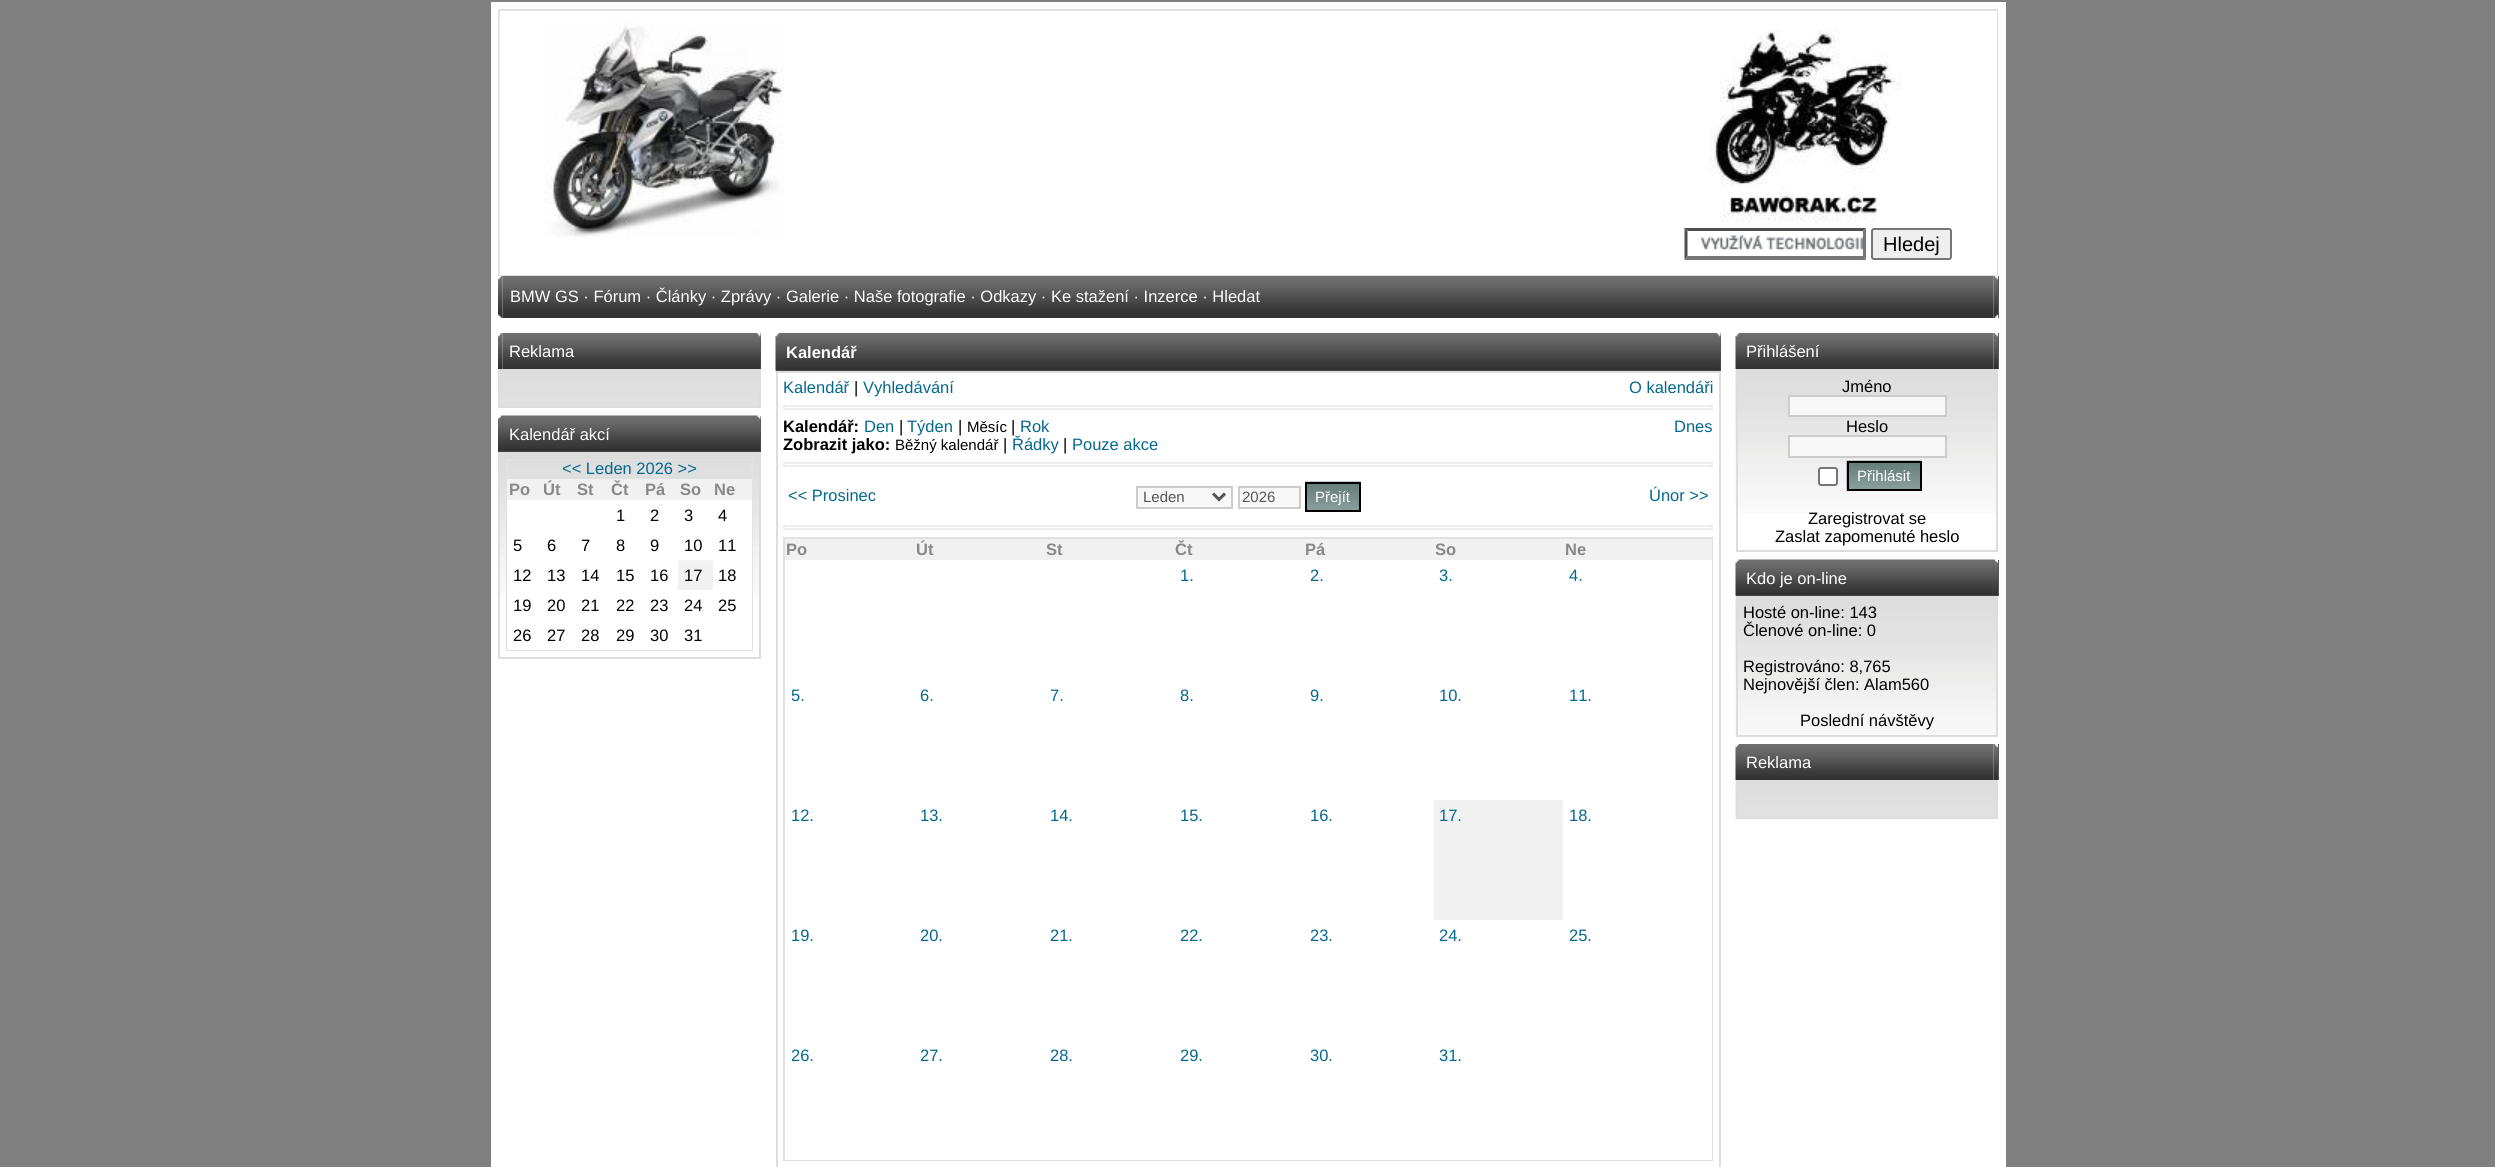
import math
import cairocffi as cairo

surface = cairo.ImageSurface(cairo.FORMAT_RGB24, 2495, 1167)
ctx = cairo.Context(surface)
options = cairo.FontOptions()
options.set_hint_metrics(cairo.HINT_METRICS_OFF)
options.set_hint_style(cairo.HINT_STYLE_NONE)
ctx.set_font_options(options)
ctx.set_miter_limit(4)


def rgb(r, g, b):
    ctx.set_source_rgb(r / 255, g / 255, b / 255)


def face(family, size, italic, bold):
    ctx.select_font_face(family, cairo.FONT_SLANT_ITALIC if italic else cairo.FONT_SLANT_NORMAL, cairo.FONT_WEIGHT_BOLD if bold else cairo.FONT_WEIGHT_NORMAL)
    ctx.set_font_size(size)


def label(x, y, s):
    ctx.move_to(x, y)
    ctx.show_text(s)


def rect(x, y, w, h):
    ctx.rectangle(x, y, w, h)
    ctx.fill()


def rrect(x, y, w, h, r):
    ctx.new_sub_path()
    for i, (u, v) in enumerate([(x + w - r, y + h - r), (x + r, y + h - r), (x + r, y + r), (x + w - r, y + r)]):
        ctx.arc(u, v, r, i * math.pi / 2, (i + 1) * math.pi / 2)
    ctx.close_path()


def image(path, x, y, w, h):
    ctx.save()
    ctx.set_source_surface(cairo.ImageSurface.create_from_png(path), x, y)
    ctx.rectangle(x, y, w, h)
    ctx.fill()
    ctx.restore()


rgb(128, 128, 128)
ctx.paint()
rgb(255, 255, 255)
rect(491, 2, 1515, 1165)
ctx.rectangle(499, 10, 1498, 265)
rgb(225, 225, 225)
ctx.stroke()
rgb(255, 255, 255)
rect(500, 11, 1497, 264)
rgb(240, 240, 240)
rect(499, 18, 1, 225)
image('image0.png', 544, 22, 241, 215)
image('image1.png', 1709, 30, 192, 192)
image('image2.png', 1701, 235, 162, 15)
rgb(79, 79, 79)
ctx.new_path()
ctx.move_to(1684, 228)
ctx.line_to(1866, 228)
ctx.line_to(1863, 231)
ctx.line_to(1688, 231)
ctx.close_path()
ctx.fill()
rgb(118, 118, 118)
ctx.new_path()
ctx.move_to(1866, 228)
ctx.line_to(1866, 259.5)
ctx.line_to(1863, 256.5)
ctx.line_to(1863, 231)
ctx.close_path()
ctx.fill()
ctx.new_path()
ctx.move_to(1866, 260)
ctx.line_to(1684, 260)
ctx.line_to(1688, 256)
ctx.line_to(1863, 256)
ctx.close_path()
ctx.fill()
rgb(79, 79, 79)
ctx.new_path()
ctx.move_to(1684.5, 259.5)
ctx.line_to(1684.5, 228)
ctx.line_to(1687.5, 231)
ctx.line_to(1687.5, 256.5)
ctx.close_path()
ctx.fill()
rgb(239, 239, 239)
rrect(1872, 229, 79, 30, 2)
ctx.fill_preserve()
rgb(118, 118, 118)
ctx.stroke()
face('Liberation Sans', 20, 0, 0)
rgb(0, 0, 0)
label(1883, 251, 'Hledej')
image('image3.png', 498, 276, 5, 42)
image('image4.png', 502, 276, 1492, 42)
face('Liberation Sans', 16.5, 0, 0)
rgb(255, 255, 255)
label(510, 302, 'BMW GS · Fórum · Články · Zprávy · Galerie · Naše fotografie · Odkazy · Ke stažení · Inzerce · Hledat')
rgb(85, 85, 85)
rect(1998, 276, 1, 42)
image('image5.png', 1993, 276, 5, 42)
image('image6.png', 498, 333, 5, 36)
image('image7.png', 502, 333, 254, 36)
rgb(255, 255, 255)
label(509, 357, 'Reklama')
rgb(85, 85, 85)
rect(760, 333, 1, 36)
image('image8.png', 756, 333, 5, 36)
image('image9.png', 500, 371, 259, 35)
ctx.rectangle(499, 370, 261, 37)
rgb(221, 221, 221)
ctx.stroke()
rgb(85, 85, 85)
rect(498, 416, 5, 36)
image('image10.png', 498, 415, 5, 37)
rect(503, 451, 253, 1)
image('image11.png', 502, 415, 254, 37)
rgb(255, 255, 255)
label(509, 440, 'Kalendář akcí')
rgb(85, 85, 85)
rect(756, 416, 5, 36)
image('image12.png', 756, 415, 5, 37)
image('image13.png', 500, 454, 259, 142)
ctx.rectangle(499, 453, 261, 205)
rgb(221, 221, 221)
ctx.stroke()
ctx.rectangle(507, 460, 245, 190)
rgb(225, 225, 225)
ctx.stroke()
rgb(4, 104, 141)
label(562, 474, '<< Leden 2026 >>')
rgb(241, 241, 241)
rect(507, 479, 245, 21)
face('Liberation Sans', 16.5, 0, 1)
rgb(136, 136, 136)
label(509, 495, 'Po')
label(543, 495, 'Út')
label(577, 495, 'St')
label(611, 495, 'Čt')
label(645, 495, 'Pá')
label(680, 495, 'So')
label(714, 495, 'Ne')
rgb(255, 255, 255)
rect(507, 500, 245, 30)
face('Liberation Sans', 16.5, 0, 0)
rgb(0, 0, 0)
label(616, 521, '1')
label(650, 521, '2')
label(684, 521, '3')
label(718, 521, '4')
rgb(255, 255, 255)
rect(507, 530, 245, 30)
rgb(0, 0, 0)
label(513, 551, '5')
label(547, 551, '6')
label(581, 551, '7')
label(616, 551, '8')
label(650, 551, '9')
label(684, 551, '10')
label(718, 551, '11')
rgb(255, 255, 255)
rect(507, 560, 171, 30)
rgb(0, 0, 0)
label(513, 581, '12')
label(547, 581, '13')
label(581, 581, '14')
label(616, 581, '15')
label(650, 581, '16')
rgb(241, 241, 241)
rect(678, 563, 35, 27)
rgb(0, 0, 0)
label(684, 581, '17')
rgb(255, 255, 255)
rect(713, 560, 39, 90)
rgb(0, 0, 0)
label(718, 581, '18')
rgb(255, 255, 255)
rect(507, 590, 35, 60)
rgb(0, 0, 0)
label(513, 611, '19')
rgb(255, 255, 255)
rect(542, 590, 171, 6)
rgb(0, 0, 0)
label(547, 611, '20')
label(581, 611, '21')
label(616, 611, '22')
label(650, 611, '23')
label(684, 611, '24')
label(718, 611, '25')
label(513, 641, '26')
rgb(255, 255, 255)
rect(542, 649, 171, 1)
rgb(0, 0, 0)
label(547, 641, '27')
label(581, 641, '28')
label(616, 641, '29')
label(650, 641, '30')
label(684, 641, '31')
rgb(85, 85, 85)
rect(776, 370, 940, 1)
image('image14.png', 775, 333, 5, 38)
rect(1716, 333, 5, 38)
image('image15.png', 1716, 333, 5, 38)
image('image16.png', 780, 333, 936, 38)
face('Liberation Sans', 16.5, 0, 1)
rgb(255, 255, 255)
label(786, 358, 'Kalendář')
ctx.rectangle(777, 372, 943, 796)
rgb(221, 221, 221)
ctx.stroke()
face('Liberation Sans', 16.5, 0, 0)
rgb(4, 104, 141)
label(783, 393, 'Kalendář')
rgb(0, 0, 0)
label(854, 393, '|')
rgb(4, 104, 141)
label(863, 393, 'Vyhledávání')
label(1629, 393, 'O kalendáři')
ctx.rectangle(784, 406, 928, 3)
rgb(238, 238, 238)
ctx.stroke()
face('Liberation Sans', 16.5, 0, 1)
rgb(0, 0, 0)
label(783, 432, 'Kalendář:')
face('Liberation Sans', 16.5, 0, 0)
rgb(4, 104, 141)
label(864, 432, 'Den')
rgb(0, 0, 0)
label(899, 432, '|')
rgb(4, 104, 141)
label(907, 432, 'Týden')
rgb(0, 0, 0)
label(958, 432, '|')
face('Liberation Sans', 15, 0, 0)
label(967, 432, 'Měsíc')
face('Liberation Sans', 16.5, 0, 0)
label(1011, 432, '|')
rgb(4, 104, 141)
label(1020, 432, 'Rok')
face('Liberation Sans', 16.5, 0, 1)
rgb(0, 0, 0)
label(783, 450, 'Zobrazit jako:')
face('Liberation Sans', 15, 0, 0)
label(895, 450, 'Běžný kalendář')
face('Liberation Sans', 16.5, 0, 0)
label(1003, 450, '|')
rgb(4, 104, 141)
label(1012, 450, 'Řádky')
rgb(0, 0, 0)
label(1063, 450, '|')
rgb(4, 104, 141)
label(1072, 450, 'Pouze akce')
label(1674, 432, 'Dnes')
ctx.rectangle(784, 463, 928, 3)
rgb(238, 238, 238)
ctx.stroke()
rgb(4, 104, 141)
label(788, 501, '<< Prosinec')
rgb(248, 248, 248)
ctx.rectangle(1137, 487, 95, 21)
ctx.fill_preserve()
rgb(204, 204, 204)
ctx.stroke()
ctx.new_path()
ctx.move_to(1213, 493.5)
ctx.line_to(1219, 499.5)
ctx.line_to(1225, 493.5)
rgb(85, 85, 85)
ctx.set_line_width(3)
ctx.stroke()
face('Liberation Sans', 15, 0, 0)
label(1143, 502, 'Leden')
rgb(248, 248, 248)
ctx.rectangle(1239, 487, 61, 21)
ctx.fill_preserve()
rgb(204, 204, 204)
ctx.set_line_width(2)
ctx.stroke()
rgb(85, 85, 85)
label(1242, 502, '2026')
image('image17.png', 1305, 481, 56, 29)
ctx.rectangle(1306, 483, 54, 28)
rgb(0, 0, 0)
ctx.stroke()
rgb(255, 255, 255)
label(1315, 502, 'Přejít')
face('Liberation Sans', 16.5, 0, 0)
rgb(4, 104, 141)
label(1649, 501, 'Únor >>')
ctx.rectangle(784, 526, 928, 3)
rgb(238, 238, 238)
ctx.stroke()
ctx.rectangle(784, 538, 928, 622)
rgb(225, 225, 225)
ctx.stroke()
rgb(241, 241, 241)
rect(785, 539, 927, 21)
face('Liberation Sans', 16.5, 0, 1)
rgb(136, 136, 136)
label(786, 555, 'Po')
label(916, 555, 'Út')
label(1046, 555, 'St')
label(1175, 555, 'Čt')
label(1305, 555, 'Pá')
label(1435, 555, 'So')
label(1565, 555, 'Ne')
face('Liberation Sans', 16.5, 0, 0)
rgb(4, 104, 141)
label(1180, 581, '1.')
label(1310, 581, '2.')
label(1439, 581, '3.')
rgb(255, 255, 255)
rect(1711, 560, 1, 480)
rgb(4, 104, 141)
label(1569, 581, '4.')
label(791, 701, '5.')
label(920, 701, '6.')
label(1050, 701, '7.')
label(1180, 701, '8.')
label(1310, 701, '9.')
label(1439, 701, '10.')
label(1569, 701, '11.')
label(791, 821, '12.')
label(920, 821, '13.')
label(1050, 821, '14.')
label(1180, 821, '15.')
label(1310, 821, '16.')
rgb(241, 241, 241)
rect(1434, 800, 129, 120)
rgb(4, 104, 141)
label(1439, 821, '17.')
label(1569, 821, '18.')
label(791, 941, '19.')
label(920, 941, '20.')
label(1050, 941, '21.')
label(1180, 941, '22.')
label(1310, 941, '23.')
label(1439, 941, '24.')
label(1569, 941, '25.')
rgb(255, 255, 255)
rect(785, 1159, 778, 1)
rgb(4, 104, 141)
label(791, 1061, '26.')
label(920, 1061, '27.')
label(1050, 1061, '28.')
label(1180, 1061, '29.')
label(1310, 1061, '30.')
label(1439, 1061, '31.')
rgb(255, 255, 255)
rect(1563, 1040, 149, 120)
image('image18.png', 1735, 333, 5, 36)
image('image19.png', 1740, 333, 254, 36)
label(1746, 357, 'Přihlášení')
rgb(85, 85, 85)
rect(1998, 333, 1, 36)
image('image20.png', 1993, 333, 5, 36)
image('image21.png', 1735, 370, 261, 144)
ctx.rectangle(1737, 370, 260, 181)
rgb(221, 221, 221)
ctx.stroke()
rgb(0, 0, 0)
label(1842, 392, 'Jméno')
rgb(248, 248, 248)
ctx.rectangle(1789, 396, 157, 20)
ctx.fill_preserve()
rgb(204, 204, 204)
ctx.stroke()
rgb(0, 0, 0)
label(1846, 432, 'Heslo')
rgb(248, 248, 248)
ctx.rectangle(1789, 436, 157, 21)
ctx.fill_preserve()
rgb(204, 204, 204)
ctx.stroke()
rgb(255, 255, 255)
rrect(1819, 468, 18, 17, 2)
ctx.fill_preserve()
rgb(118, 118, 118)
ctx.stroke()
image('image22.png', 1846, 460, 76, 31)
ctx.rectangle(1848, 462, 73, 28)
rgb(0, 0, 0)
ctx.stroke()
face('Liberation Sans', 15, 0, 0)
rgb(255, 255, 255)
label(1857, 481, 'Přihlásit')
face('Liberation Sans', 16.5, 0, 0)
rgb(0, 0, 0)
label(1808, 524, 'Zaregistrovat se')
label(1775, 542, 'Zaslat zapomenuté heslo')
rgb(85, 85, 85)
rect(1736, 595, 4, 1)
image('image23.png', 1735, 559, 5, 37)
rect(1740, 560, 259, 36)
image('image24.png', 1740, 559, 254, 37)
rgb(255, 255, 255)
label(1746, 584, 'Kdo je on-line')
image('image25.png', 1993, 559, 5, 37)
image('image26.png', 1735, 597, 261, 139)
ctx.rectangle(1737, 597, 260, 139)
rgb(221, 221, 221)
ctx.stroke()
rgb(0, 0, 0)
label(1743, 618, 'Hosté on-line: 143')
label(1743, 636, 'Členové on-line: 0')
label(1743, 672, 'Registrováno: 8,765')
label(1743, 690, 'Nejnovější člen: Alam560')
label(1800, 726, 'Poslední návštěvy')
image('image18.png', 1735, 744, 5, 36)
image('image19.png', 1740, 744, 254, 36)
rgb(255, 255, 255)
label(1746, 768, 'Reklama')
rgb(85, 85, 85)
rect(1998, 744, 1, 36)
image('image20.png', 1993, 744, 5, 36)
image('image27.png', 1735, 781, 261, 38)
ctx.rectangle(1737, 781, 260, 37)
rgb(221, 221, 221)
ctx.stroke()
surface.write_to_png('render.png')
